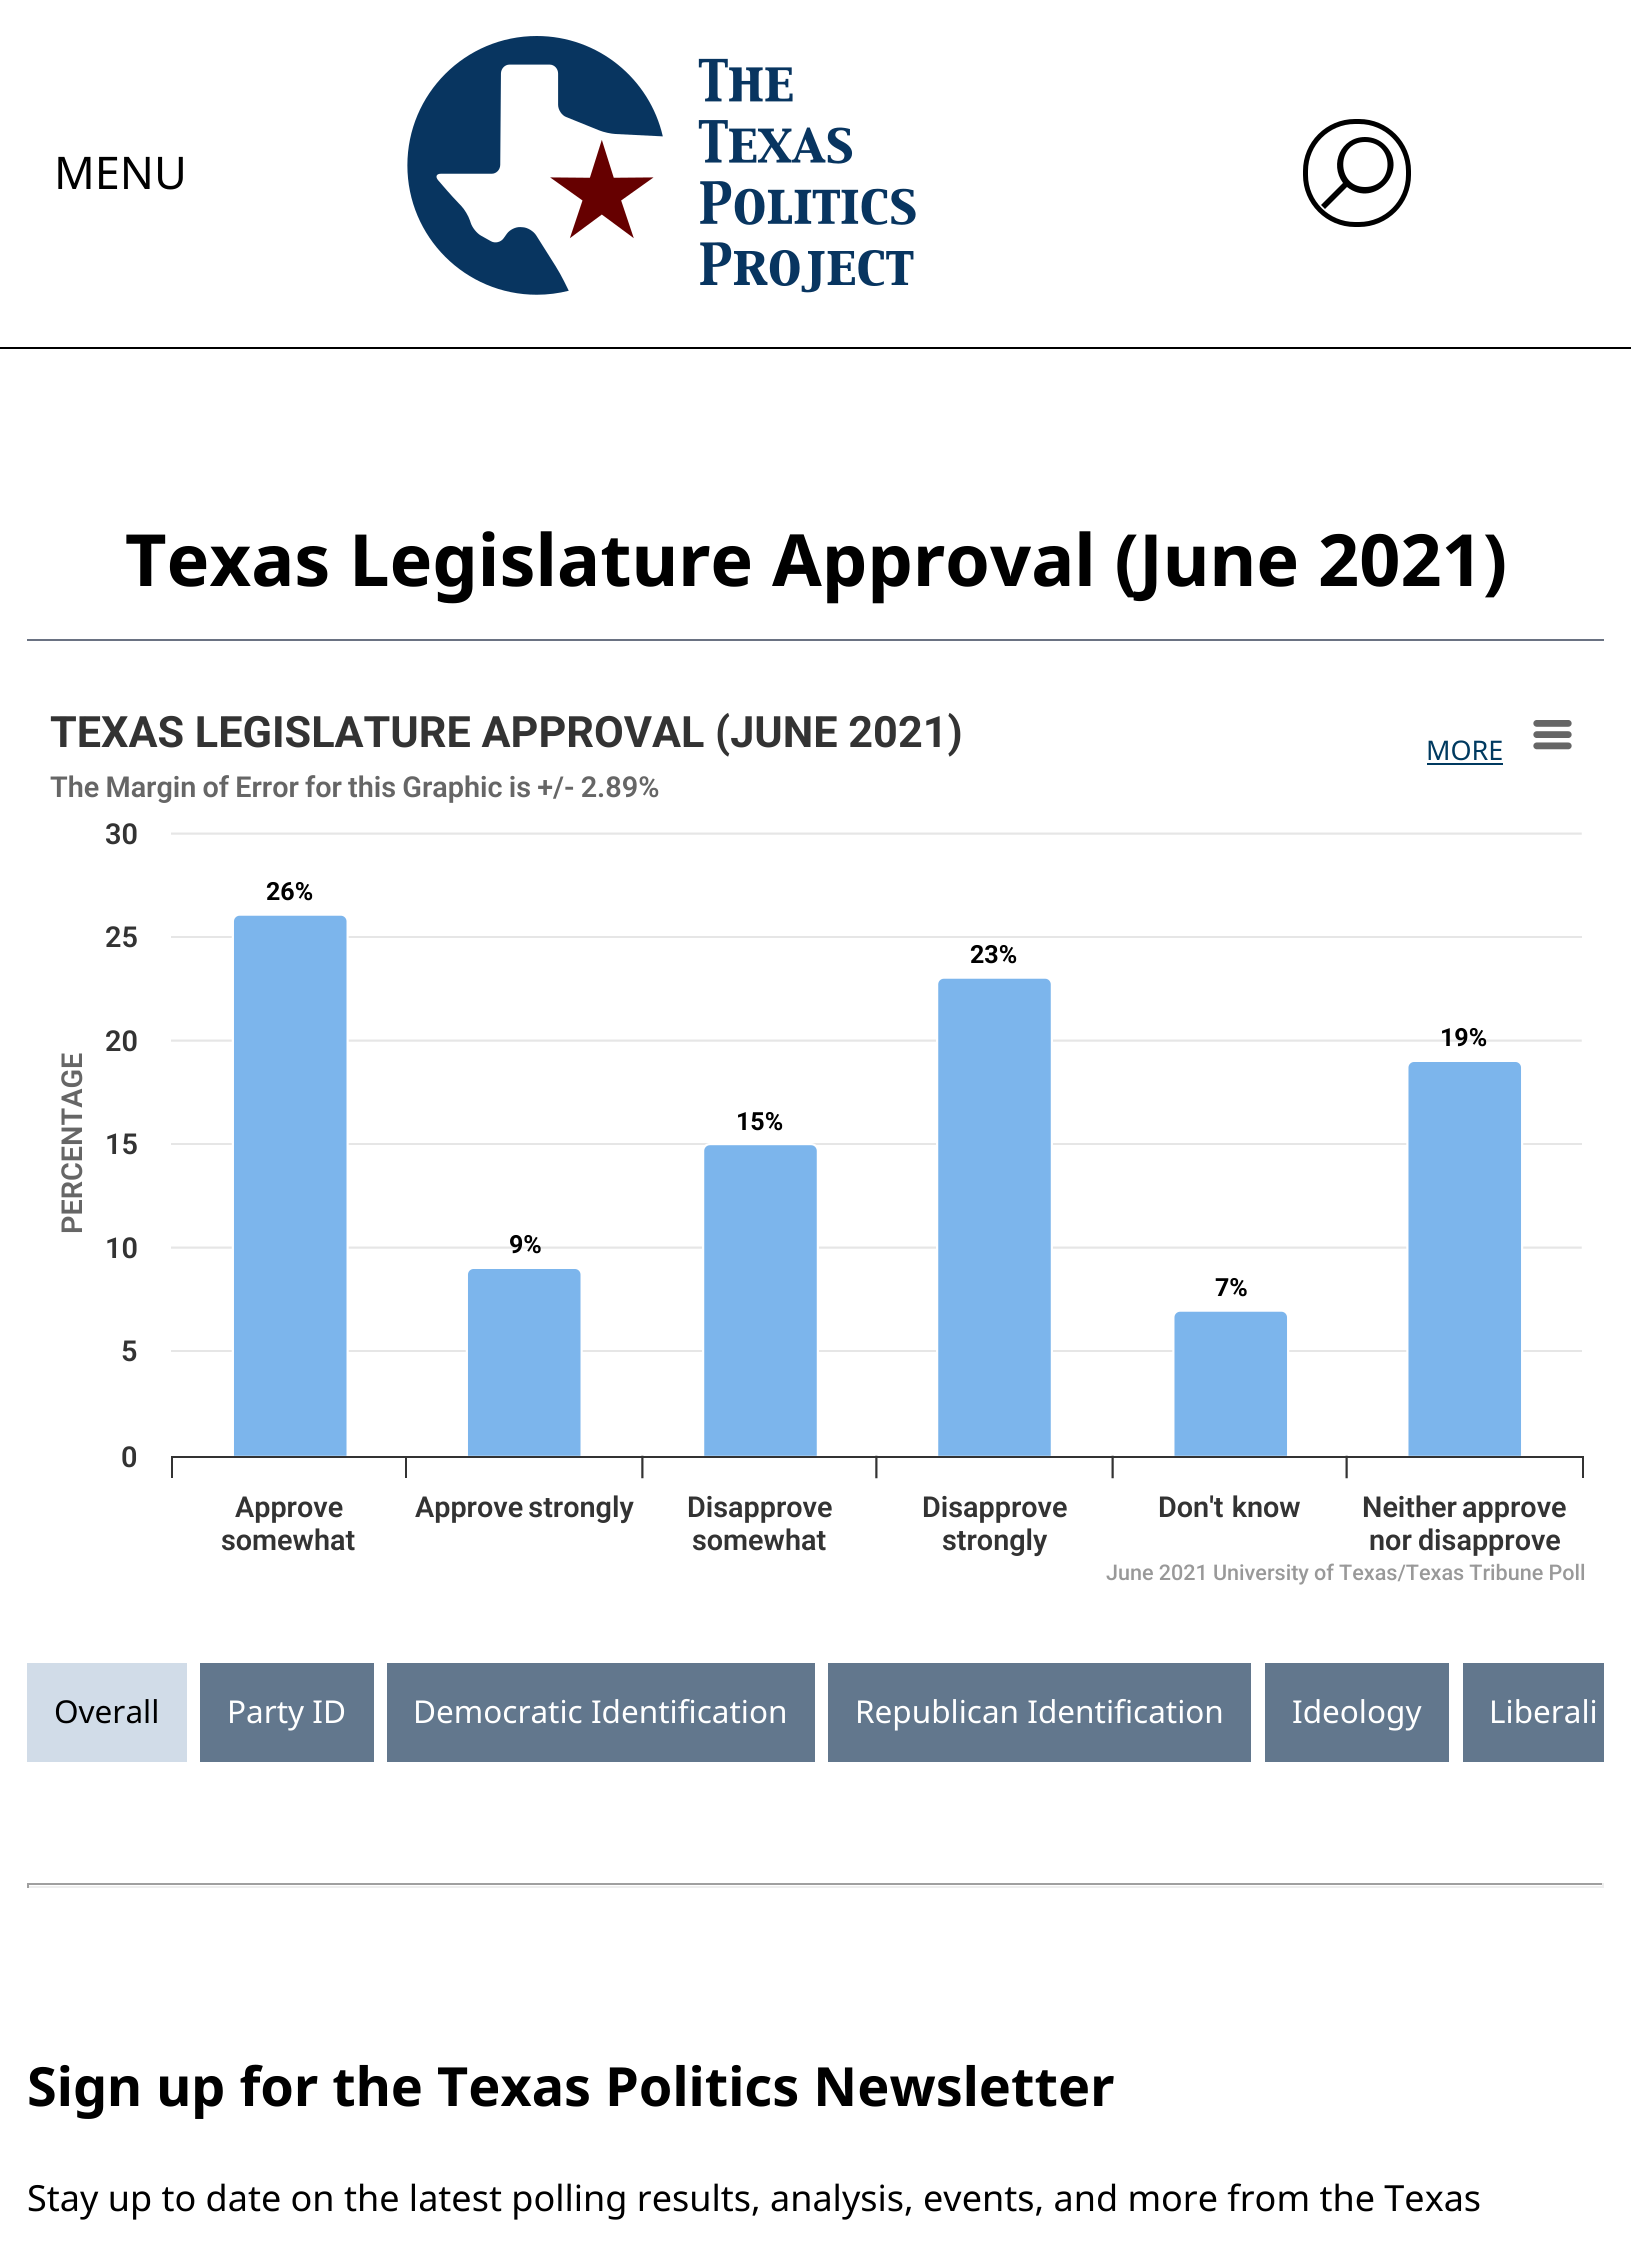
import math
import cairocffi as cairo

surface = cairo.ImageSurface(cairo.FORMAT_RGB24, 1631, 2254)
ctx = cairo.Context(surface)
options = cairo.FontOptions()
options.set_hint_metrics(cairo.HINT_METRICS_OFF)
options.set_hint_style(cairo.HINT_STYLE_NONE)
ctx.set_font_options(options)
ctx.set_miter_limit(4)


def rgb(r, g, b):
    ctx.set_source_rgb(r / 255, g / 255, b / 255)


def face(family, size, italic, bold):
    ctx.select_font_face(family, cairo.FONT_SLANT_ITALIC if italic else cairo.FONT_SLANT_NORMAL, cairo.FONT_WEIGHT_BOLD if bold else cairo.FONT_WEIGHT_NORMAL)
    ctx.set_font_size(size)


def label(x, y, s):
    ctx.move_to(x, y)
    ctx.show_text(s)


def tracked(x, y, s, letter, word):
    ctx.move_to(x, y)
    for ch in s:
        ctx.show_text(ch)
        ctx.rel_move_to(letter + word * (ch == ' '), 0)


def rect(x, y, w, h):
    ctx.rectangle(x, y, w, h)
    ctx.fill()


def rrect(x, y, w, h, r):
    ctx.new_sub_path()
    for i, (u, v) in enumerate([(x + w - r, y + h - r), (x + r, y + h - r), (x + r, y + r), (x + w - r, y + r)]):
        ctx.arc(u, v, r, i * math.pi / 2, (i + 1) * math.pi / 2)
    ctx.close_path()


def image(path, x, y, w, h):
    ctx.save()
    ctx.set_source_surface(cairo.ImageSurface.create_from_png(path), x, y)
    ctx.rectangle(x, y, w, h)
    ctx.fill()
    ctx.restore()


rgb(255, 255, 255)
ctx.paint()
rgb(0, 0, 0)
rect(0, 347, 1631, 2)
face('Noto Sans', 45, 0, 0)
label(54, 189, 'MENU')
image('image0.png', 407, 36, 509, 259)
rrect(1305.5, 121.5, 103, 103, 49.5)
ctx.set_line_width(5)
ctx.stroke()
ctx.new_path()
ctx.move_to(1365, 137)
ctx.curve_to(1341, 137, 1329, 164, 1343, 183)
ctx.line_to(1321, 205)
ctx.line_to(1325, 209)
ctx.line_to(1347, 187)
ctx.curve_to(1375, 209, 1410, 170, 1385, 145)
ctx.curve_to(1380, 140, 1373, 137, 1365, 137)
ctx.close_path()
ctx.move_to(1365, 142)
ctx.curve_to(1395, 142, 1395, 187, 1365, 187)
ctx.curve_to(1336, 187, 1336, 142, 1365, 142)
ctx.close_path()
ctx.fill()
rgb(106, 114, 130)
rect(27, 639, 1577, 2)
face('Noto Sans', 72, 0, 1)
rgb(0, 0, 0)
label(125, 586, 'Texas Legislature Approval (June 2021)')
image('image1.png', 171, 720, 1413, 759)
face('Roboto', 43.2, 0, 1)
rgb(51, 51, 51)
label(50, 747, 'TEXAS LEGISLATURE APPROVAL (JUNE 2021)')
face('Roboto SemiBold', 28.8, 0, 0)
rgb(102, 102, 102)
tracked(50, 797, 'The Margin of Error for this Graphic is +/- 2.89%', 0, -1)
rgb(51, 51, 51)
label(105, 844, '30')
face('Roboto', 25, 0, 1)
rgb(0, 0, 0)
label(266, 900, '26%')
face('Roboto SemiBold', 28.8, 0, 0)
rgb(51, 51, 51)
label(105, 947, '25')
face('Roboto', 25, 0, 1)
rgb(0, 0, 0)
label(970, 963, '23%')
face('Roboto SemiBold', 28.8, 0, 0)
rgb(51, 51, 51)
label(105, 1051, '20')
face('Roboto', 25, 0, 1)
rgb(0, 0, 0)
label(1440, 1046, '19%')
face('Roboto SemiBold', 28.8, 0, 0)
rgb(102, 102, 102)
ctx.save()
ctx.translate(82, 1234)
ctx.rotate(-90 * math.pi / 180)
label(0, 0, 'PERCENTAGE')
ctx.restore()
face('Roboto', 25, 0, 1)
rgb(0, 0, 0)
label(736, 1130, '15%')
face('Roboto SemiBold', 28.8, 0, 0)
rgb(51, 51, 51)
label(105, 1154, '15')
label(105, 1258, '10')
face('Roboto', 25, 0, 1)
rgb(0, 0, 0)
label(509, 1253, '9%')
label(1215, 1296, '7%')
face('Roboto SemiBold', 28.8, 0, 0)
rgb(51, 51, 51)
label(121, 1361, '5')
label(121, 1467, '0')
label(235, 1517, 'Approve')
tracked(415, 1517, 'Approve strongly', 0, -2)
label(687, 1517, 'Disapprove')
label(922, 1517, 'Disapprove')
tracked(1158, 1517, 'Don\'t know', 0, 1)
tracked(1362, 1517, 'Neither approve', 0, -2)
label(221, 1550, 'somewhat')
label(692, 1550, 'somewhat')
label(942, 1550, 'strongly')
tracked(1369, 1550, 'nor disapprove', 0, -1)
face('Roboto Medium', 21.6, 0, 0)
rgb(153, 153, 153)
tracked(1106, 1580, 'June 2021 University of Texas/Texas Tribune Poll', 0, -0.25)
face('Noto Sans', 27, 0, 0)
rgb(0, 58, 96)
label(1426, 760, 'MORE')
rect(1427, 763, 76, 2)
rgb(209, 220, 232)
rect(27, 1663, 160, 99)
face('Noto Sans', 31.5, 0, 0)
rgb(0, 0, 0)
label(54, 1723, 'Overall')
rgb(98, 119, 141)
rect(200, 1663, 174, 99)
rgb(255, 255, 255)
label(227, 1723, 'Party ID')
rgb(98, 119, 141)
rect(387, 1663, 428, 99)
rgb(255, 255, 255)
label(413, 1723, 'Democratic Identification')
rgb(98, 119, 141)
rect(828, 1663, 423, 99)
rgb(255, 255, 255)
label(855, 1723, 'Republican Identification')
rgb(98, 119, 141)
rect(1265, 1663, 184, 99)
rgb(255, 255, 255)
label(1292, 1723, 'Ideology')
rgb(98, 119, 141)
rect(1463, 1663, 141, 99)
rgb(255, 255, 255)
label(1489, 1723, 'Liberali')
rgb(159, 159, 159)
rect(27, 1883, 1577, 2)
rgb(238, 238, 238)
rect(1602, 1883, 2, 5)
rect(27, 1886, 1577, 2)
rgb(159, 159, 159)
rect(27, 1883, 2, 5)
face('Noto Sans', 54, 0, 1)
rgb(0, 0, 0)
label(27, 2106, 'Sign up for the Texas Politics Newsletter')
face('Noto Sans', 36, 0, 0)
label(27, 2211, 'Stay up to date on the latest polling results, analysis, events, and more from the Texas')
surface.write_to_png('render.png')
